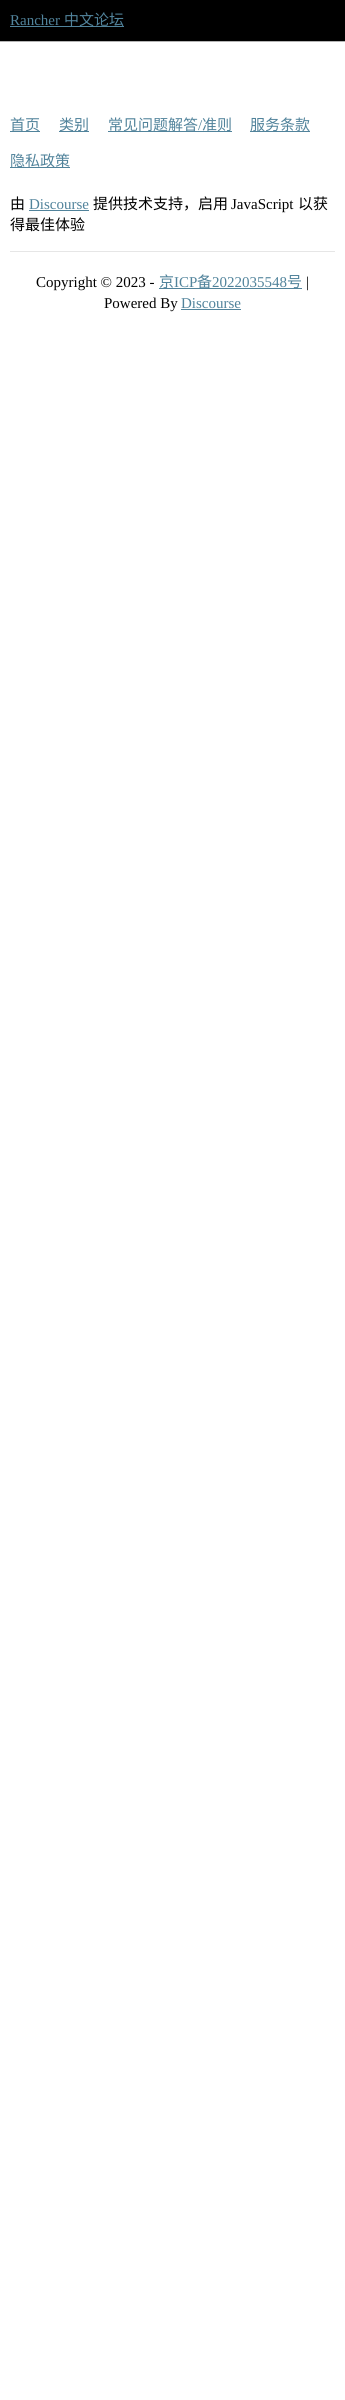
import math
import cairocffi as cairo

surface = cairo.ImageSurface(cairo.FORMAT_RGB24, 345, 2400)
ctx = cairo.Context(surface)
options = cairo.FontOptions()
options.set_hint_metrics(cairo.HINT_METRICS_OFF)
options.set_hint_style(cairo.HINT_STYLE_NONE)
ctx.set_font_options(options)
ctx.set_miter_limit(4)


def rgb(r, g, b):
    ctx.set_source_rgb(r / 255, g / 255, b / 255)


def face(family, size, italic, bold):
    ctx.select_font_face(family, cairo.FONT_SLANT_ITALIC if italic else cairo.FONT_SLANT_NORMAL, cairo.FONT_WEIGHT_BOLD if bold else cairo.FONT_WEIGHT_NORMAL)
    ctx.set_font_size(size)


def label(x, y, s):
    ctx.move_to(x, y)
    ctx.show_text(s)


def rect(x, y, w, h):
    ctx.rectangle(x, y, w, h)
    ctx.fill()


rgb(255, 255, 255)
ctx.paint()
rgb(0, 0, 0)
rect(0, 0, 345, 41)
rgb(180, 180, 180)
rect(0, 41, 345, 1)
face('Liberation Serif', 15, 0, 0)
rgb(81, 131, 155)
label(10, 25, 'Rancher')
rect(10, 26, 114, 1)
face('Noto Sans CJK SC', 15, 0, 0)
label(64, 25, '中文论坛')
rect(10, 131, 30, 1)
label(10, 130, '首页')
rect(59, 131, 30, 1)
label(59, 130, '类别')
rect(108, 131, 124, 1)
label(108, 130, '常见问题解答')
face('Liberation Serif', 15, 0, 0)
label(198, 130, '/')
face('Noto Sans CJK SC', 15, 0, 0)
label(202, 130, '准则')
rect(250, 131, 60, 1)
label(250, 130, '服务条款')
rect(10, 167, 60, 1)
label(10, 166, '隐私政策')
rgb(0, 0, 0)
label(10, 209, '由')
face('Liberation Serif', 15, 0, 0)
rgb(81, 131, 155)
label(29, 209, 'Discourse')
rect(29, 210, 60, 1)
face('Noto Sans CJK SC', 15, 0, 0)
rgb(0, 0, 0)
label(93, 209, '提供技术支持，启用')
face('Liberation Serif', 15, 0, 0)
label(231, 209, 'JavaScript')
face('Noto Sans CJK SC', 15, 0, 0)
label(298, 209, '以获')
label(10, 230, '得最佳体验')
rgb(230, 230, 230)
rect(10, 251, 325, 1)
face('Liberation Serif', 15, 0, 0)
rgb(0, 0, 0)
label(36, 287, 'Copyright © 2023 -')
rgb(81, 131, 155)
rect(159, 288, 143, 1)
face('Noto Sans CJK SC', 15, 0, 0)
label(159, 287, '京')
face('Liberation Serif', 15, 0, 0)
label(174, 287, 'ICP')
face('Noto Sans CJK SC', 15, 0, 0)
label(197, 287, '备')
face('Liberation Serif', 15, 0, 0)
label(212, 287, '2022035548')
face('Noto Sans CJK SC', 15, 0, 0)
label(287, 287, '号')
face('Liberation Serif', 15, 0, 0)
rgb(0, 0, 0)
label(306, 287, '|')
label(104, 308, 'Powered By')
rgb(81, 131, 155)
label(181, 308, 'Discourse')
rect(181, 309, 60, 1)
surface.write_to_png('render.png')
